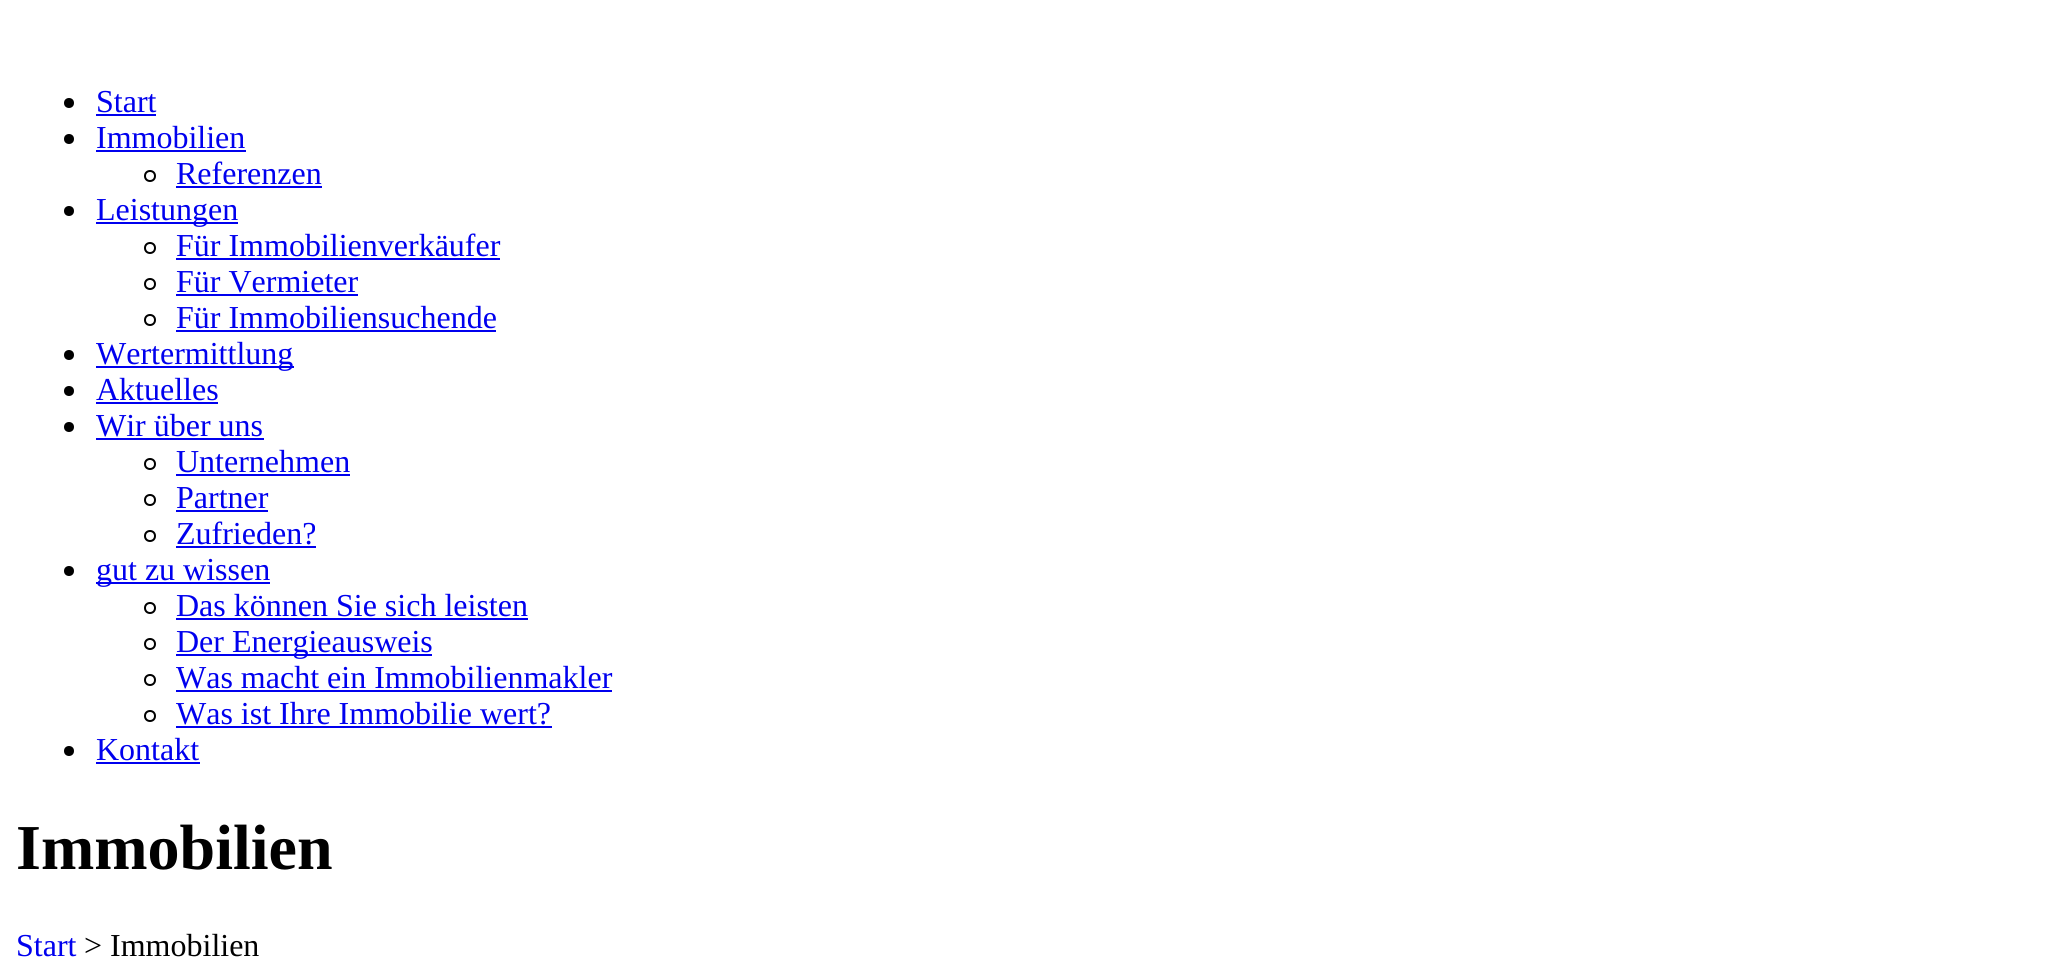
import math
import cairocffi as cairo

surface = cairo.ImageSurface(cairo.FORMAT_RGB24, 2055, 957)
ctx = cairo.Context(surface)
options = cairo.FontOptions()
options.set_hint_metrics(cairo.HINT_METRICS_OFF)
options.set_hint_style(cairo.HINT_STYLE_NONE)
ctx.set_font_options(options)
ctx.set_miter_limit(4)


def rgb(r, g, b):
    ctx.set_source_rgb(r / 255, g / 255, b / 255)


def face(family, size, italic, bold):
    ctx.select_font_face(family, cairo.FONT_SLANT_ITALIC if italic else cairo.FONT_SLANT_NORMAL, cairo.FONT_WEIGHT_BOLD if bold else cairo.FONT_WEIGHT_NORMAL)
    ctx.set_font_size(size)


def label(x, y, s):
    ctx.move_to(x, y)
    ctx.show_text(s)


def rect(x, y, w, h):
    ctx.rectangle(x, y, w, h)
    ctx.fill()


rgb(255, 255, 255)
ctx.paint()
rgb(0, 0, 0)
ctx.arc(69, 103, 5, 0, 2 * math.pi)
ctx.fill()
face('Liberation Serif', 32, 0, 0)
rgb(0, 0, 238)
label(96, 112, 'Start')
rect(96, 114, 60, 2)
rgb(0, 0, 0)
ctx.new_path()
ctx.arc(69, 139, 5, 0, 2 * math.pi)
ctx.fill()
rgb(0, 0, 238)
label(96, 148, 'Immobilien')
rect(96, 150, 150, 2)
ctx.new_path()
ctx.arc(150, 176, 5, 0, 2 * math.pi)
rgb(0, 0, 0)
ctx.stroke()
rgb(0, 0, 238)
label(176, 184, 'Referenzen')
rect(176, 186, 146, 2)
rgb(0, 0, 0)
ctx.new_path()
ctx.arc(69, 211, 5, 0, 2 * math.pi)
ctx.fill()
rgb(0, 0, 238)
rect(96, 222, 142, 2)
label(96, 220, 'Leistungen')
ctx.new_path()
ctx.arc(150, 248, 5, 0, 2 * math.pi)
rgb(0, 0, 0)
ctx.stroke()
rgb(0, 0, 238)
label(176, 256, 'Für Immobilienverkäufer')
rect(176, 258, 324, 2)
ctx.new_path()
ctx.arc(150, 284, 5, 0, 2 * math.pi)
rgb(0, 0, 0)
ctx.stroke()
rgb(0, 0, 238)
label(176, 292, 'Für Vermieter')
rect(176, 294, 182, 2)
ctx.new_path()
ctx.arc(150, 320, 5, 0, 2 * math.pi)
rgb(0, 0, 0)
ctx.stroke()
rgb(0, 0, 238)
label(176, 328, 'Für Immobiliensuchende')
rect(176, 330, 320, 2)
rgb(0, 0, 0)
ctx.new_path()
ctx.arc(69, 355, 5, 0, 2 * math.pi)
ctx.fill()
rgb(0, 0, 238)
rect(96, 366, 198, 2)
label(96, 364, 'Wertermittlung')
rgb(0, 0, 0)
ctx.new_path()
ctx.arc(69, 391, 5, 0, 2 * math.pi)
ctx.fill()
rgb(0, 0, 238)
label(96, 400, 'Aktuelles')
rect(96, 402, 122, 2)
rgb(0, 0, 0)
ctx.new_path()
ctx.arc(69, 427, 5, 0, 2 * math.pi)
ctx.fill()
rgb(0, 0, 238)
label(96, 436, 'Wir über uns')
rect(96, 438, 168, 2)
ctx.new_path()
ctx.arc(150, 464, 5, 0, 2 * math.pi)
rgb(0, 0, 0)
ctx.stroke()
rgb(0, 0, 238)
label(176, 472, 'Unternehmen')
rect(176, 474, 174, 2)
ctx.new_path()
ctx.arc(150, 500, 5, 0, 2 * math.pi)
rgb(0, 0, 0)
ctx.stroke()
rgb(0, 0, 238)
label(176, 508, 'Partner')
rect(176, 510, 92, 2)
ctx.new_path()
ctx.arc(150, 536, 5, 0, 2 * math.pi)
rgb(0, 0, 0)
ctx.stroke()
rgb(0, 0, 238)
label(176, 544, 'Zufrieden?')
rect(176, 546, 140, 2)
rgb(0, 0, 0)
ctx.new_path()
ctx.arc(69, 571, 5, 0, 2 * math.pi)
ctx.fill()
rgb(0, 0, 238)
rect(96, 582, 174, 2)
label(96, 580, 'gut zu wissen')
ctx.new_path()
ctx.arc(150, 608, 5, 0, 2 * math.pi)
rgb(0, 0, 0)
ctx.stroke()
rgb(0, 0, 238)
label(176, 616, 'Das können Sie sich leisten')
rect(176, 618, 352, 2)
ctx.new_path()
ctx.arc(150, 644, 5, 0, 2 * math.pi)
rgb(0, 0, 0)
ctx.stroke()
rgb(0, 0, 238)
rect(176, 654, 256, 2)
label(176, 652, 'Der Energieausweis')
ctx.new_path()
ctx.arc(150, 680, 5, 0, 2 * math.pi)
rgb(0, 0, 0)
ctx.stroke()
rgb(0, 0, 238)
label(176, 688, 'Was macht ein Immobilienmakler')
rect(176, 690, 436, 2)
ctx.new_path()
ctx.arc(150, 716, 5, 0, 2 * math.pi)
rgb(0, 0, 0)
ctx.stroke()
rgb(0, 0, 238)
label(176, 724, 'Was ist Ihre Immobilie wert?')
rect(176, 726, 376, 2)
rgb(0, 0, 0)
ctx.new_path()
ctx.arc(69, 751, 5, 0, 2 * math.pi)
ctx.fill()
rgb(0, 0, 238)
label(96, 760, 'Kontakt')
rect(96, 762, 104, 2)
face('Liberation Serif', 64, 0, 1)
rgb(0, 0, 0)
label(16, 869, 'Immobilien')
face('Liberation Serif', 32, 0, 0)
rgb(0, 0, 238)
label(16, 956, 'Start')
rgb(0, 0, 0)
label(84, 956, '> Immobilien')
surface.write_to_png('render.png')
